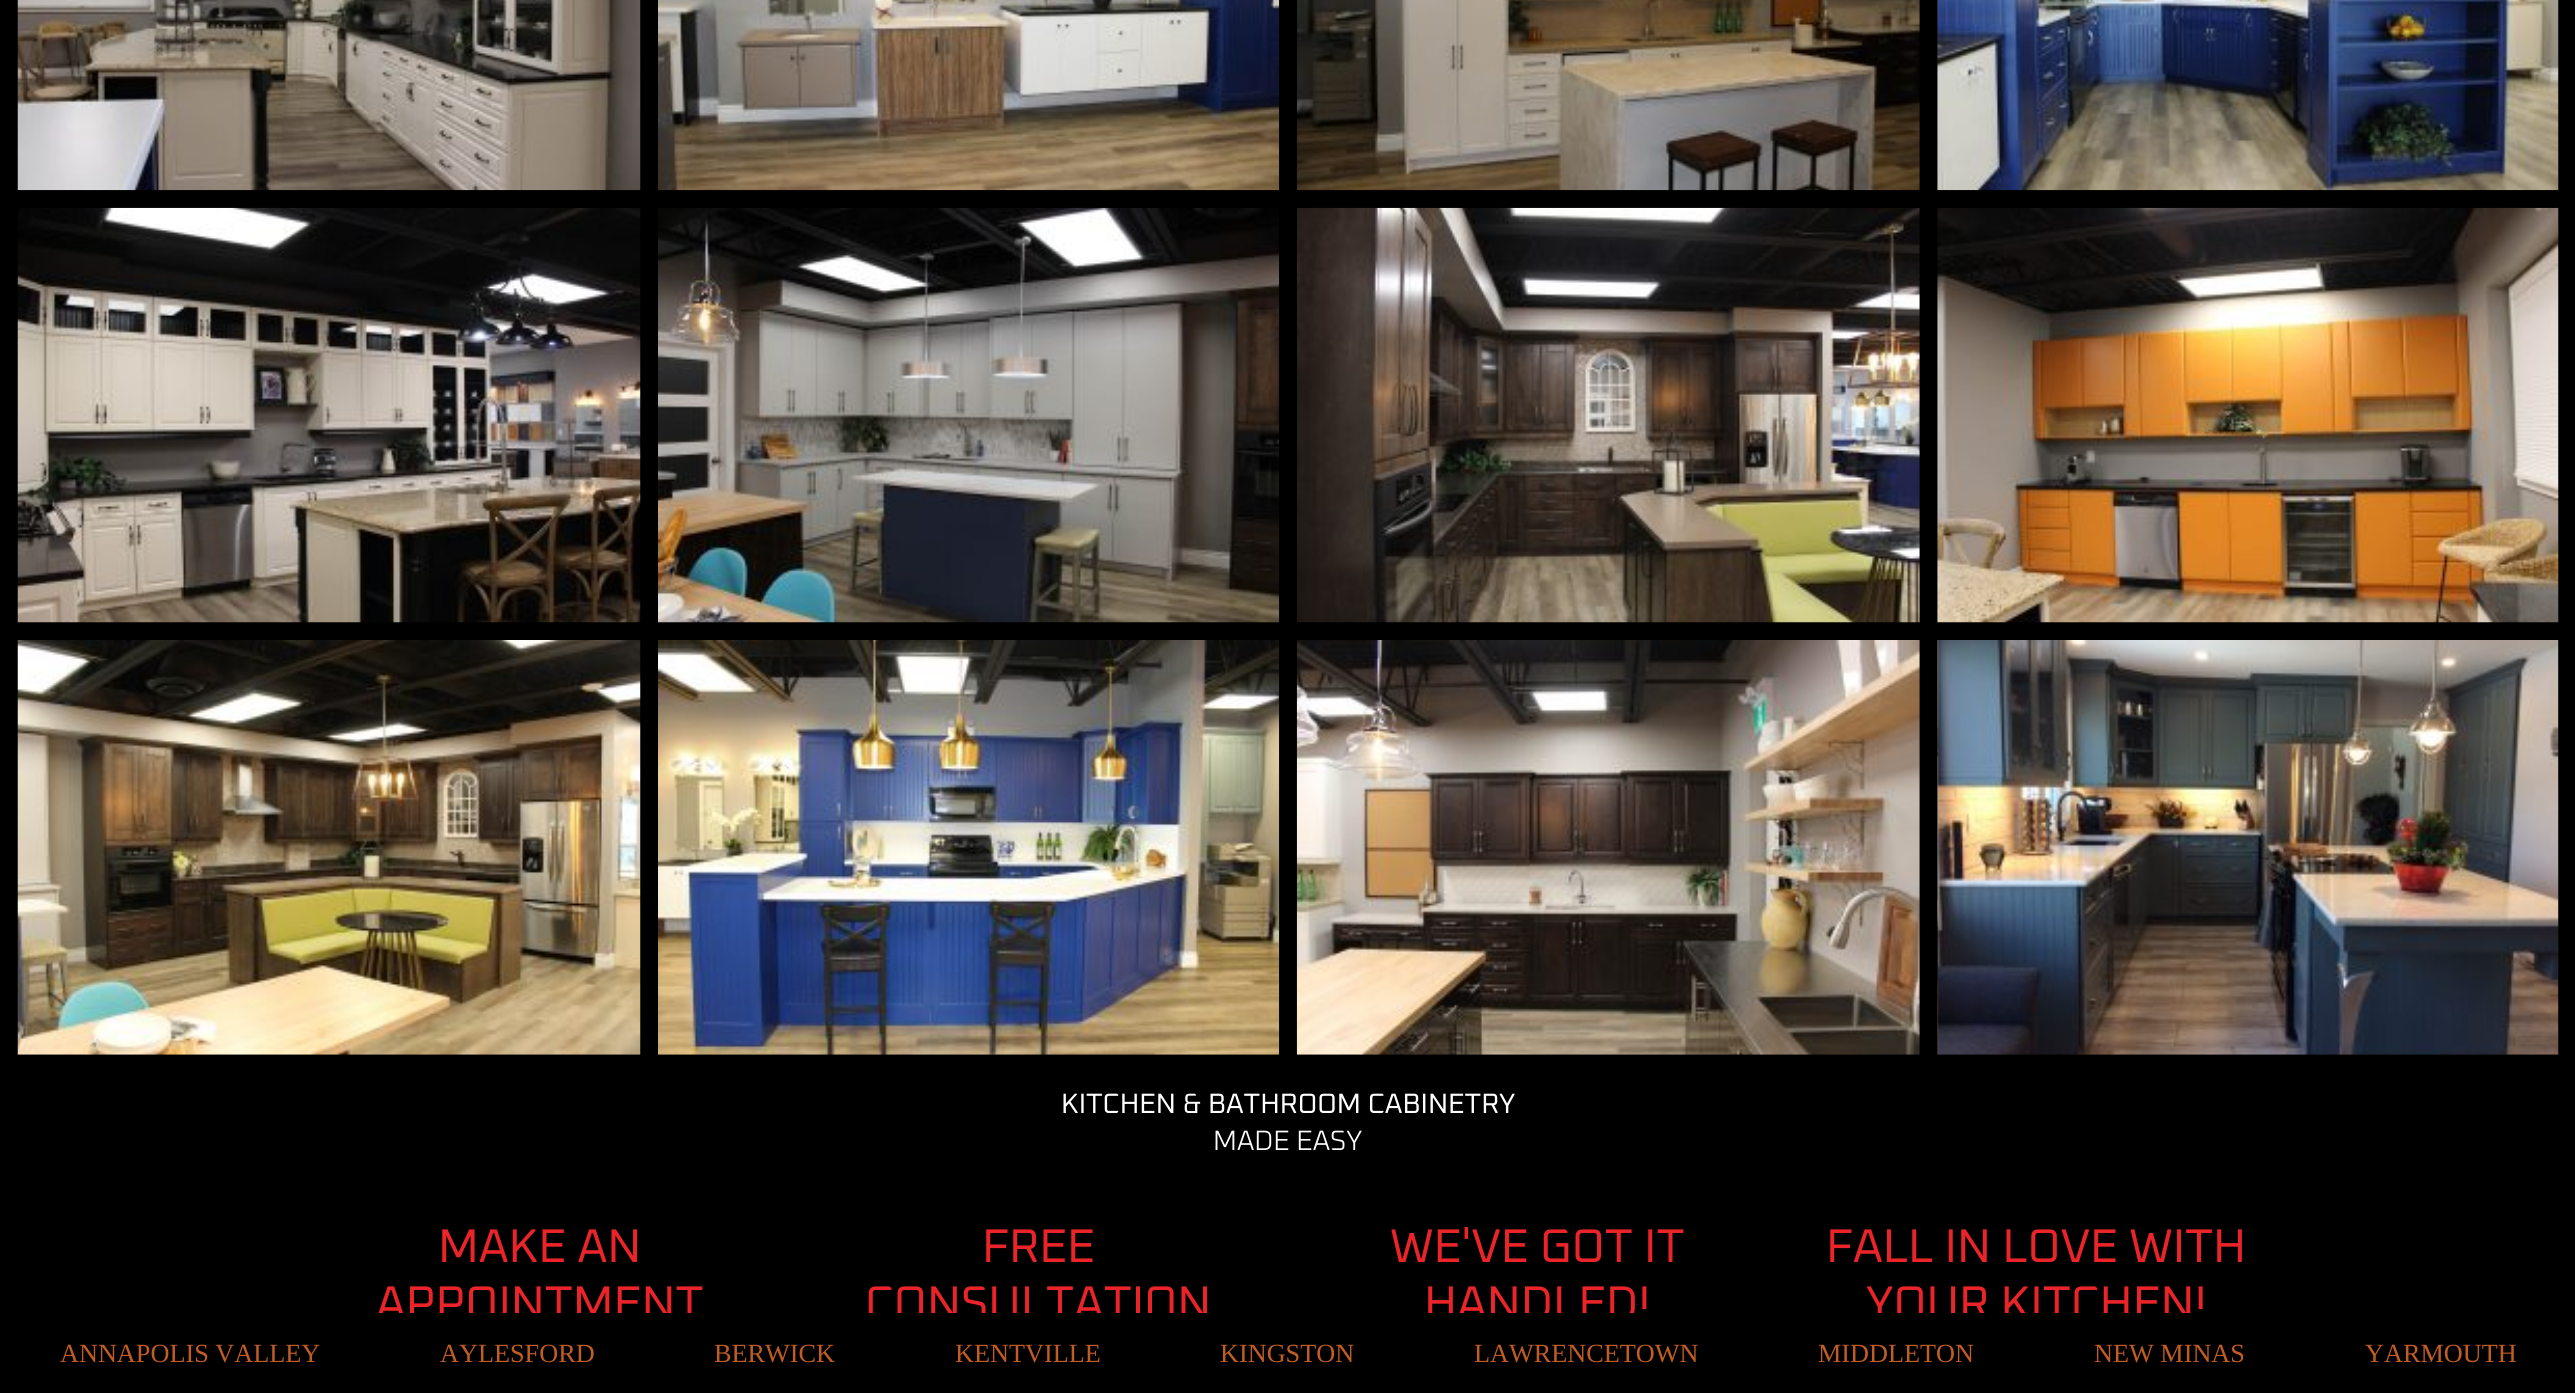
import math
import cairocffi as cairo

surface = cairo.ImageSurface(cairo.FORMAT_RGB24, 2575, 1393)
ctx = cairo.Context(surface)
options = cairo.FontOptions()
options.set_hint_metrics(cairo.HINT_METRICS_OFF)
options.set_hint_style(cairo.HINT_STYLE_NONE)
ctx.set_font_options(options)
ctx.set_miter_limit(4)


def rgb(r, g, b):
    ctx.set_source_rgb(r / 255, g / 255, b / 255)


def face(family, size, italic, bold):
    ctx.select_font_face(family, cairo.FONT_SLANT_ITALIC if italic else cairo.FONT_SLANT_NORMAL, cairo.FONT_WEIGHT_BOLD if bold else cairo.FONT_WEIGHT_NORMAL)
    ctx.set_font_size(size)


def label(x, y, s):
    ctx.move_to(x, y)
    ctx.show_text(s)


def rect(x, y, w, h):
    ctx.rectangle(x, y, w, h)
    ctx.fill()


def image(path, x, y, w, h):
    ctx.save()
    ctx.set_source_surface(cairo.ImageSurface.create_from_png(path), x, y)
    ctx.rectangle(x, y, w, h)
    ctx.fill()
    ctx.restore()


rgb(0, 0, 0)
ctx.paint()
image('image0.png', 17, 0, 624, 191)
image('image1.png', 658, 0, 622, 191)
image('image2.png', 1296, 0, 624, 191)
image('image3.png', 1937, 0, 622, 191)
image('image4.png', 17, 207, 624, 416)
image('image5.png', 658, 207, 622, 416)
image('image6.png', 1297, 207, 623, 416)
image('image7.png', 1937, 207, 622, 416)
image('image8.png', 17, 640, 624, 415)
image('image9.png', 658, 640, 622, 415)
image('image10.png', 1296, 640, 624, 415)
image('image11.png', 1937, 640, 622, 415)
face('Oxanium', 28, 0, 0)
rgb(255, 255, 255)
label(1061, 1113, 'KITCHEN & BATHROOM CABINETRY')
face('Oxanium Light', 28, 0, 0)
label(1213, 1150, 'MADE EASY')
face('Oxanium', 47.25, 0, 0)
rgb(235, 36, 42)
label(438, 1262, 'MAKE AN')
label(376, 1319, 'APPOINTMENT')
label(982, 1262, 'FREE')
label(865, 1319, 'CONSULTATION')
label(1390, 1262, 'WE\'VE GOT IT')
label(1424, 1319, 'HANDLED!')
label(1826, 1262, 'FALL IN LOVE WITH')
label(1866, 1319, 'YOUR KITCHEN!')
rgb(0, 0, 0)
rect(377, 1313, 1826, 6)
face('Liberation Serif', 26.25, 0, 0)
rgb(193, 93, 35)
label(60, 1362, 'ANNAPOLIS VALLEY')
label(440, 1362, 'AYLESFORD')
label(714, 1362, 'BERWICK')
label(955, 1362, 'KENTVILLE')
label(1220, 1362, 'KINGSTON')
label(1474, 1362, 'LAWRENCETOWN')
label(1818, 1362, 'MIDDLETON')
label(2094, 1362, 'NEW MINAS')
label(2365, 1362, 'YARMOUTH')
surface.write_to_png('render.png')
